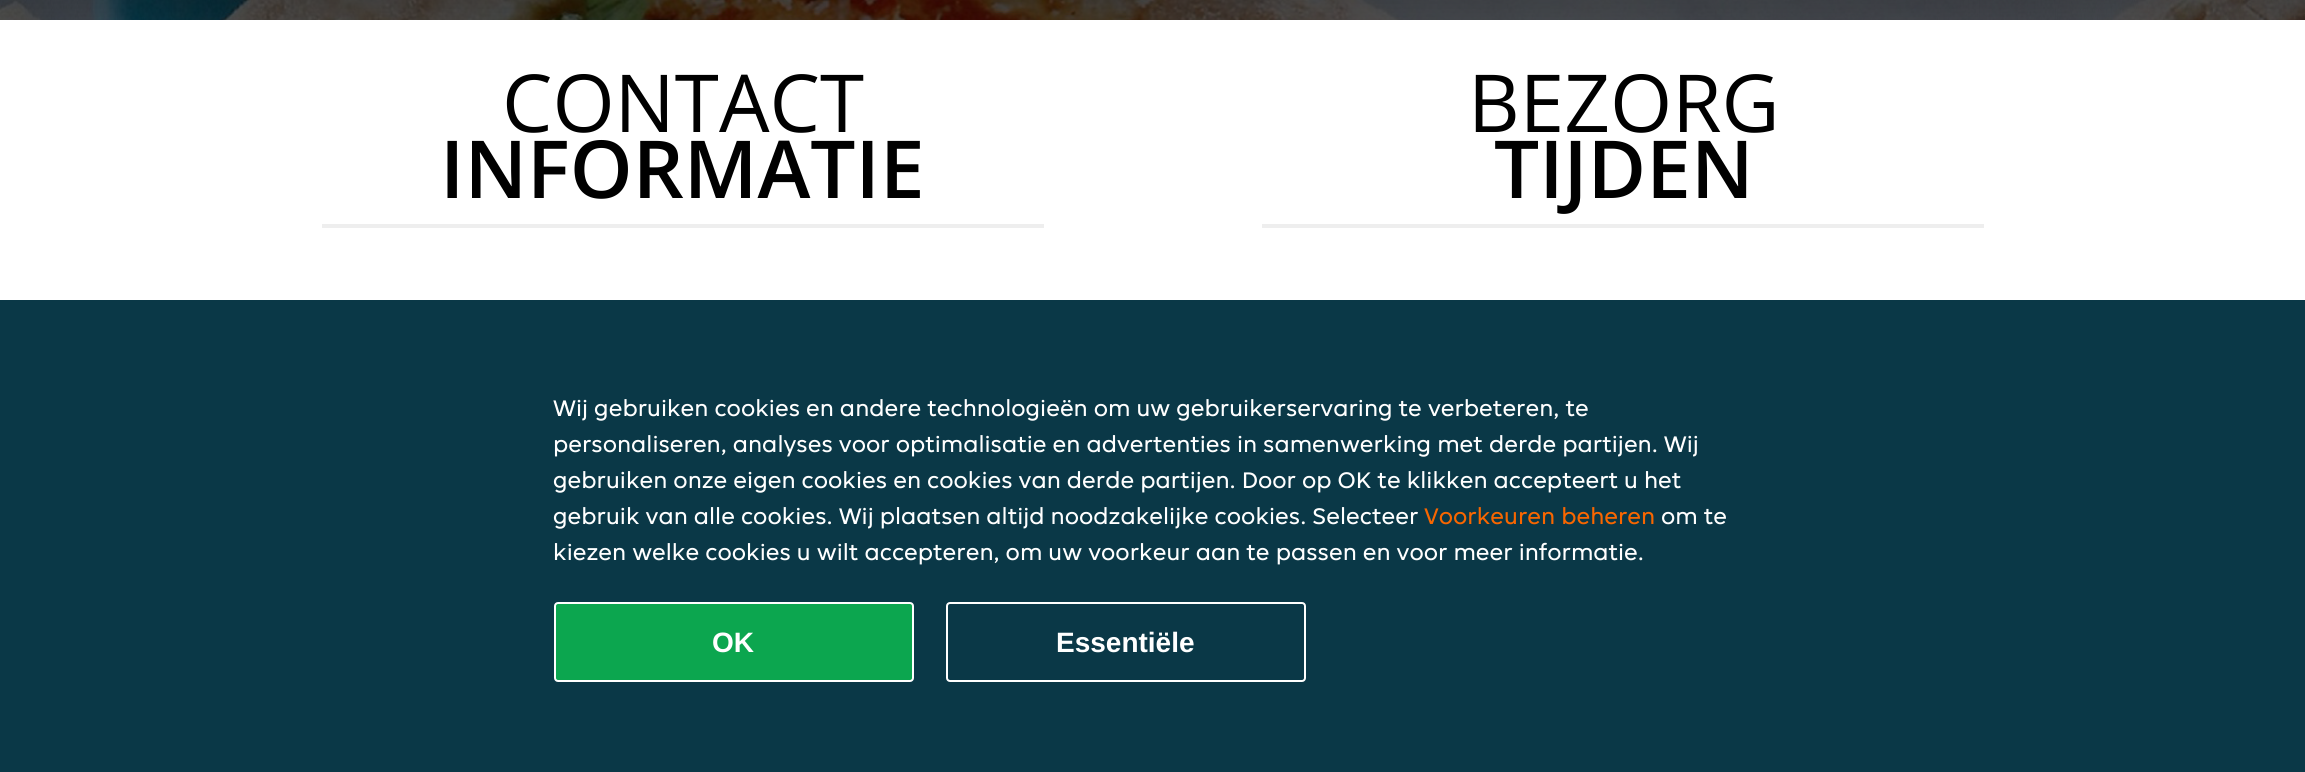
import math
import cairocffi as cairo

surface = cairo.ImageSurface(cairo.FORMAT_RGB24, 2305, 772)
ctx = cairo.Context(surface)
options = cairo.FontOptions()
options.set_hint_metrics(cairo.HINT_METRICS_OFF)
options.set_hint_style(cairo.HINT_STYLE_NONE)
ctx.set_font_options(options)
ctx.set_miter_limit(4)


def rgb(r, g, b):
    ctx.set_source_rgb(r / 255, g / 255, b / 255)


def face(family, size, italic, bold):
    ctx.select_font_face(family, cairo.FONT_SLANT_ITALIC if italic else cairo.FONT_SLANT_NORMAL, cairo.FONT_WEIGHT_BOLD if bold else cairo.FONT_WEIGHT_NORMAL)
    ctx.set_font_size(size)


def label(x, y, s):
    ctx.move_to(x, y)
    ctx.show_text(s)


def rect(x, y, w, h):
    ctx.rectangle(x, y, w, h)
    ctx.fill()


def rrect(x, y, w, h, r):
    ctx.new_sub_path()
    for i, (u, v) in enumerate([(x + w - r, y + h - r), (x + r, y + h - r), (x + r, y + r), (x + w - r, y + r)]):
        ctx.arc(u, v, r, i * math.pi / 2, (i + 1) * math.pi / 2)
    ctx.close_path()


def image(path, x, y, w, h):
    ctx.save()
    ctx.set_source_surface(cairo.ImageSurface.create_from_png(path), x, y)
    ctx.rectangle(x, y, w, h)
    ctx.fill()
    ctx.restore()


rgb(255, 255, 255)
ctx.paint()
image('image0.png', 0, 0, 2305, 20)
face('Open Sans', 80, 0, 0)
rgb(0, 0, 0)
label(502, 132, 'CONTACT')
face('Open Sans SemiBold', 80, 0, 0)
label(440, 198, 'INFORMATIE')
rgb(238, 238, 238)
rect(322, 224, 722, 4)
face('Open Sans', 80, 0, 0)
rgb(0, 0, 0)
label(1468, 132, 'BEZORG')
face('Open Sans SemiBold', 80, 0, 0)
label(1494, 198, 'TIJDEN')
rgb(238, 238, 238)
rect(1262, 224, 722, 4)
rgb(10, 56, 71)
rect(0, 300, 2305, 472)
face('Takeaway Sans', 24, 0, 0)
rgb(255, 255, 255)
label(553, 416, 'Wij gebruiken cookies en andere technologieën om uw gebruikerservaring te verbeteren, te')
label(553, 452, 'personaliseren, analyses voor optimalisatie en advertenties in samenwerking met derde partijen. Wij')
label(553, 488, 'gebruiken onze eigen cookies en cookies van derde partijen. Door op OK te klikken accepteert u het')
label(553, 524, 'gebruik van alle cookies. Wij plaatsen altijd noodzakelijke cookies. Selecteer')
rgb(248, 102, 0)
label(1424, 524, 'Voorkeuren beheren')
rgb(255, 255, 255)
label(1661, 524, 'om te')
label(553, 560, 'kiezen welke cookies u wilt accepteren, om uw voorkeur aan te passen en voor meer informatie.')
rgb(12, 166, 79)
rrect(555, 603, 358, 78, 3)
ctx.fill_preserve()
rgb(255, 255, 255)
ctx.stroke()
face('Liberation Sans', 28, 0, 1)
label(712, 652, 'OK')
rrect(947, 603, 358, 78, 3)
ctx.stroke()
label(1056, 652, 'Essentiële')
surface.write_to_png('render.png')
